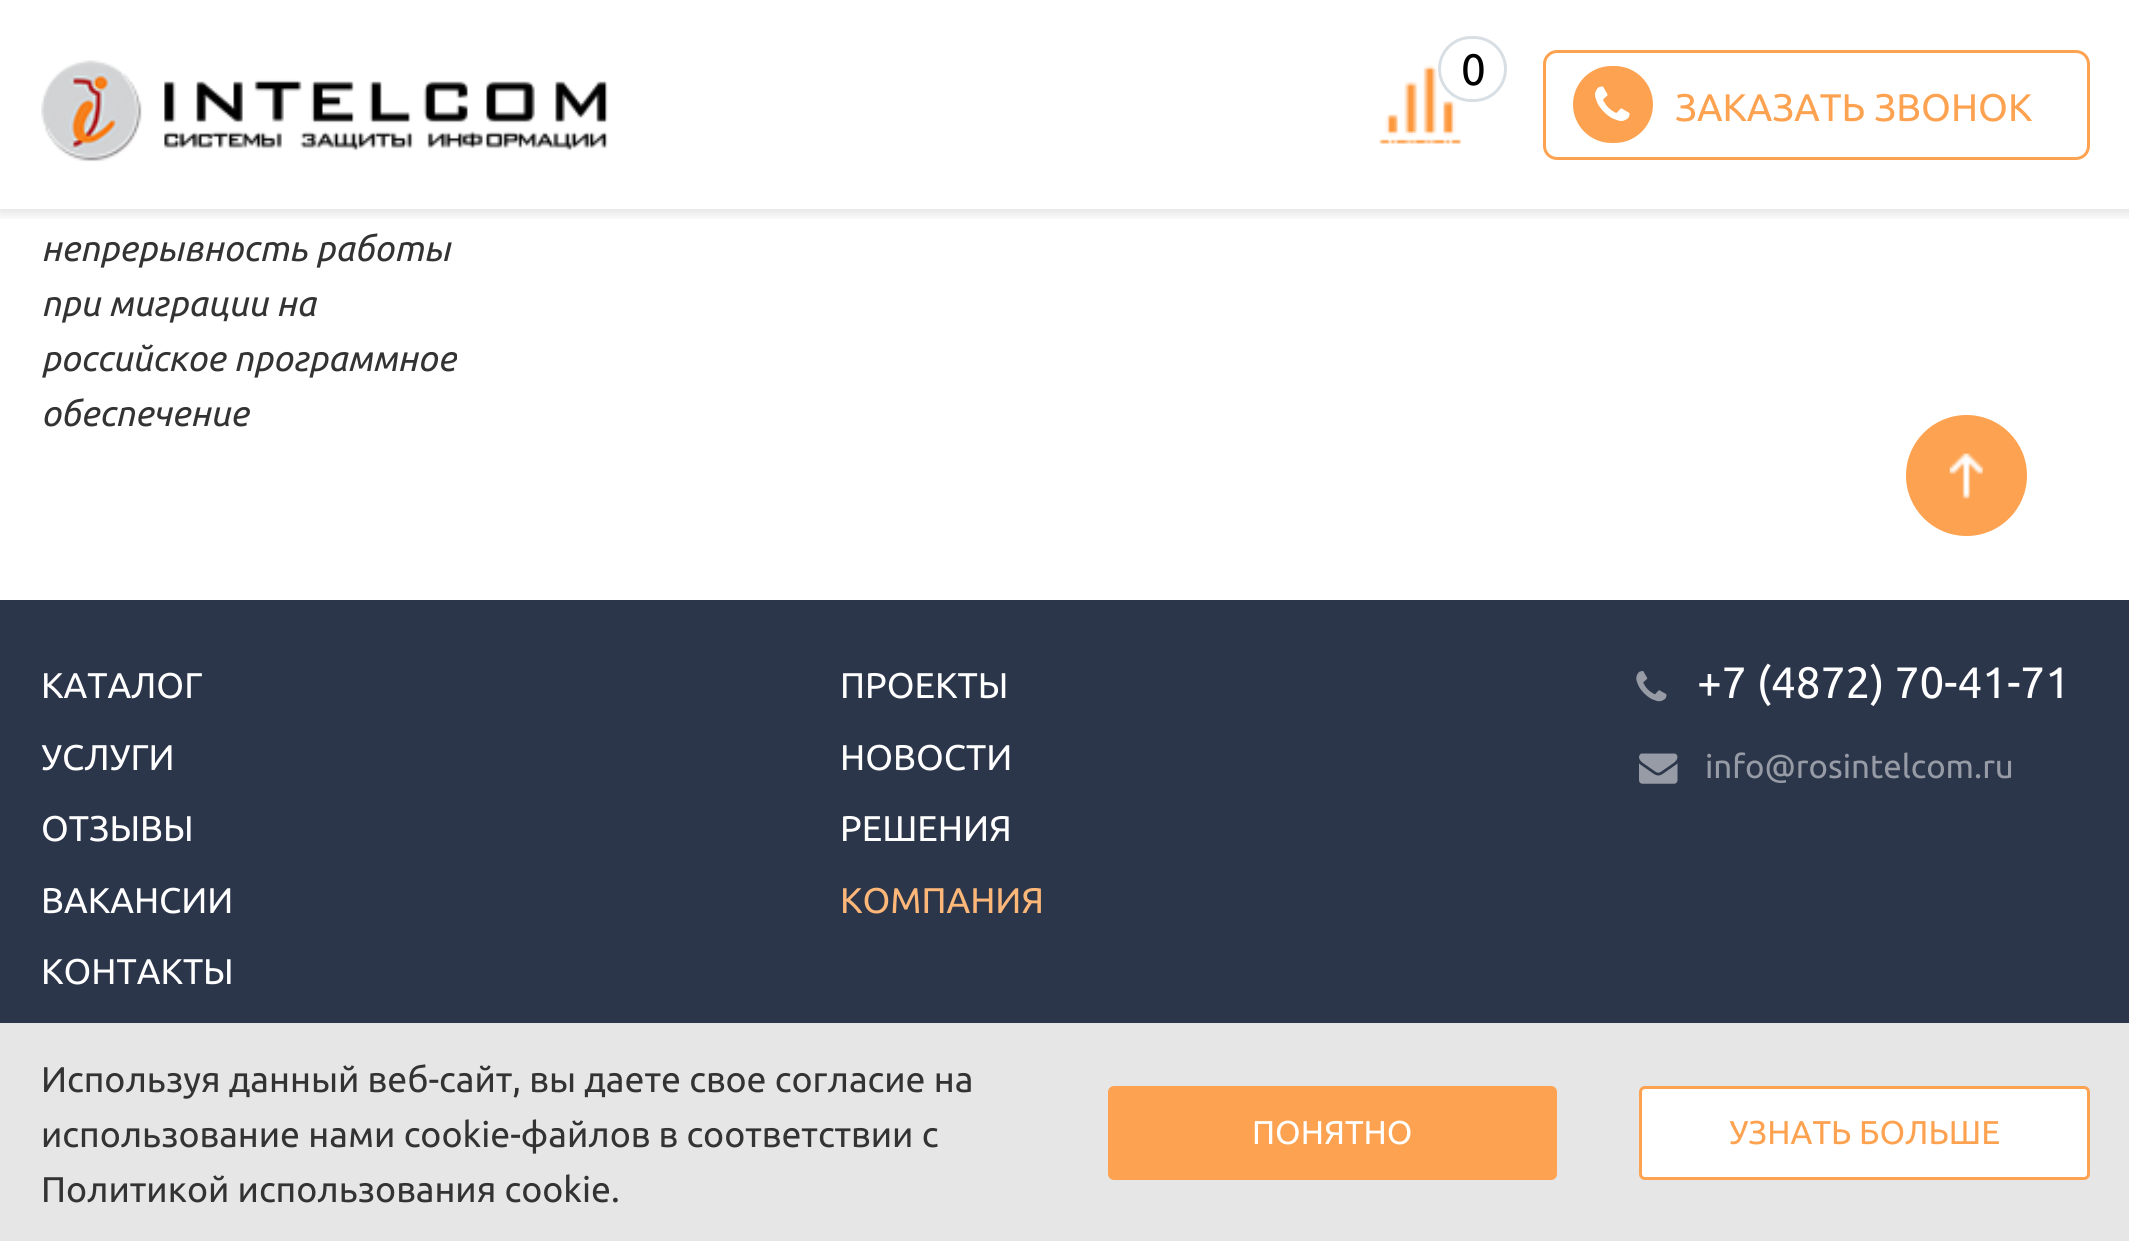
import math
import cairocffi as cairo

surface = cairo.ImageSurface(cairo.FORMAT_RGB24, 2129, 1241)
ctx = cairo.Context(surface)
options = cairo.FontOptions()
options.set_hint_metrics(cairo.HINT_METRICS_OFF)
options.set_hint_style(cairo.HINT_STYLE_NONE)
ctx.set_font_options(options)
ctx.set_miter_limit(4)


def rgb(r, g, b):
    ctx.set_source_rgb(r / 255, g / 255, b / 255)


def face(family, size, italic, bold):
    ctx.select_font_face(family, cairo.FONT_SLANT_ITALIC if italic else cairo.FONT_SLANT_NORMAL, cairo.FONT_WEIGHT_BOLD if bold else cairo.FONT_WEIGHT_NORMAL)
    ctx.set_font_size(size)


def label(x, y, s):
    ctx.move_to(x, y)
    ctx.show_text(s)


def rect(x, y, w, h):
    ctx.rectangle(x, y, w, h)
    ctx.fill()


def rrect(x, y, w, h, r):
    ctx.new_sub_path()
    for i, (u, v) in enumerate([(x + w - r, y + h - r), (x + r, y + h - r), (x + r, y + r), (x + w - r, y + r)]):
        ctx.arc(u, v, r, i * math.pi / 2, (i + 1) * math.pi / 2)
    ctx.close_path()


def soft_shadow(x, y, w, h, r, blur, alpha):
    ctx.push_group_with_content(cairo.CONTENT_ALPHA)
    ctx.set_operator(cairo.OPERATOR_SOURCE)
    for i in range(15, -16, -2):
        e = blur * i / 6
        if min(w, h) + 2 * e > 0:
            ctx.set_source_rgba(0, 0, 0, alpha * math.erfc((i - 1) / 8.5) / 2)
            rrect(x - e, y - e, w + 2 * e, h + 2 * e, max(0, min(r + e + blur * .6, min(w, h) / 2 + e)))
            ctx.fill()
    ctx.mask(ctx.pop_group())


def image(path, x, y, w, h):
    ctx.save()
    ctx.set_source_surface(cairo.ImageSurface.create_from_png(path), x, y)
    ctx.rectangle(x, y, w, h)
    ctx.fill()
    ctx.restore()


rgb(255, 255, 255)
ctx.paint()
ctx.save()
ctx.rectangle(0, 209, 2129, 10)
ctx.clip()
rgb(0, 0, 0)
soft_shadow(0, 3, 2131, 209, 0, 7, 0.14)
ctx.restore()
image('image0.png', 41, 60, 567, 102)
image('image1.png', 1379, 65, 83, 79)
rrect(1439.5, 37.5, 66, 63, 31.5)
rgb(216, 223, 228)
ctx.set_line_width(3)
ctx.stroke()
face('Ubuntu', 44, 0, 0)
rgb(0, 0, 0)
label(1461, 85, '0')
rrect(1544.5, 51.5, 544, 107, 12.5)
rgb(253, 162, 80)
ctx.stroke()
rrect(1573, 66, 80, 77, 38.5)
ctx.fill()
image('image2.png', 1595, 86, 35, 35)
face('Ubuntu', 38.5, 0, 0)
label(1675, 121, 'ЗАКАЗАТЬ ЗВОНОК')
face('Ubuntu', 35.75, 1, 0)
rgb(51, 51, 51)
label(41, 261, 'непрерывность работы')
label(41, 316, 'при миграции на')
label(41, 371, 'российское программное')
label(41, 426, 'обеспечение')
rgb(253, 162, 80)
ctx.new_path()
ctx.arc(1966.5, 475.5, 60.5, 0, 2 * math.pi)
ctx.fill()
image('image3.png', 1949, 453, 34, 46)
rgb(44, 54, 74)
rect(0, 600, 2129, 423)
face('Ubuntu', 35.75, 0, 0)
rgb(255, 255, 255)
label(41, 698, 'КАТАЛОГ')
label(840, 698, 'ПРОЕКТЫ')
label(41, 770, 'УСЛУГИ')
label(840, 770, 'НОВОСТИ')
label(41, 841, 'ОТЗЫВЫ')
label(840, 841, 'РЕШЕНИЯ')
label(41, 913, 'ВАКАНСИИ')
rgb(253, 183, 120)
label(840, 913, 'КОМПАНИЯ')
rgb(255, 255, 255)
label(41, 984, 'КОНТАКТЫ')
image('image4.png', 1636, 671, 31, 31)
face('Ubuntu', 44, 0, 0)
label(1697, 698, '+7 (4872) 70-41-71')
image('image5.png', 1639, 753, 39, 31)
face('Ubuntu', 33, 0, 0)
rgb(150, 155, 165)
label(1705, 778, 'info@rosintelcom.ru')
rgb(230, 230, 230)
rect(0, 1023, 2129, 218)
face('Ubuntu', 35.75, 0, 0)
rgb(51, 51, 51)
label(41, 1092, 'Используя данный веб-сайт, вы даете свое согласие на')
label(41, 1147, 'использование нами cookie-файлов в соответствии с')
label(41, 1202, 'Политикой использования cookie.')
rgb(253, 162, 80)
rrect(1109.5, 1087.5, 446, 91, 4.5)
ctx.fill_preserve()
ctx.stroke()
face('Ubuntu', 33, 0, 0)
rgb(255, 255, 255)
label(1252, 1144, 'ПОНЯТНО')
rrect(1640.5, 1087.5, 448, 91, 4.5)
ctx.fill_preserve()
rgb(253, 162, 80)
ctx.stroke()
label(1729, 1144, 'УЗНАТЬ БОЛЬШЕ')
surface.write_to_png('render.png')
